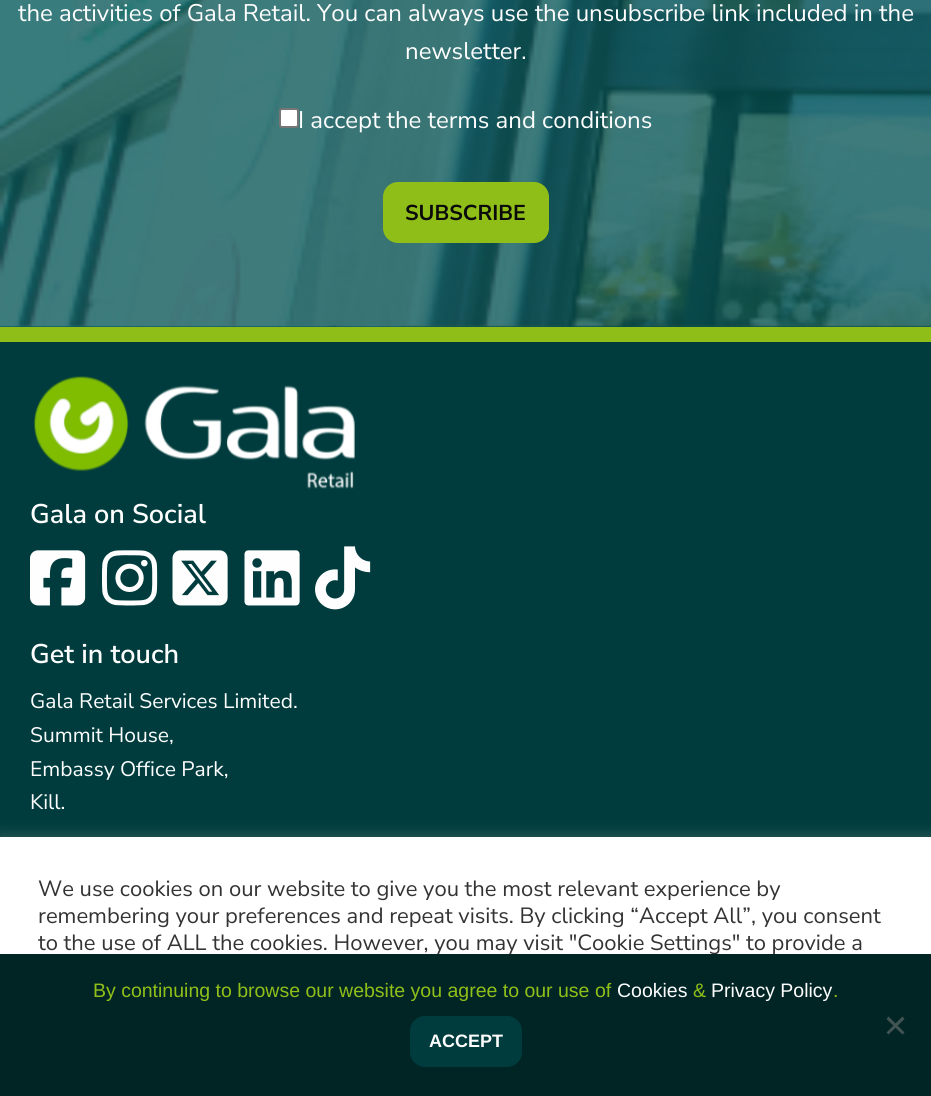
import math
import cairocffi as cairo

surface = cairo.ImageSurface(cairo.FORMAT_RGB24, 931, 1096)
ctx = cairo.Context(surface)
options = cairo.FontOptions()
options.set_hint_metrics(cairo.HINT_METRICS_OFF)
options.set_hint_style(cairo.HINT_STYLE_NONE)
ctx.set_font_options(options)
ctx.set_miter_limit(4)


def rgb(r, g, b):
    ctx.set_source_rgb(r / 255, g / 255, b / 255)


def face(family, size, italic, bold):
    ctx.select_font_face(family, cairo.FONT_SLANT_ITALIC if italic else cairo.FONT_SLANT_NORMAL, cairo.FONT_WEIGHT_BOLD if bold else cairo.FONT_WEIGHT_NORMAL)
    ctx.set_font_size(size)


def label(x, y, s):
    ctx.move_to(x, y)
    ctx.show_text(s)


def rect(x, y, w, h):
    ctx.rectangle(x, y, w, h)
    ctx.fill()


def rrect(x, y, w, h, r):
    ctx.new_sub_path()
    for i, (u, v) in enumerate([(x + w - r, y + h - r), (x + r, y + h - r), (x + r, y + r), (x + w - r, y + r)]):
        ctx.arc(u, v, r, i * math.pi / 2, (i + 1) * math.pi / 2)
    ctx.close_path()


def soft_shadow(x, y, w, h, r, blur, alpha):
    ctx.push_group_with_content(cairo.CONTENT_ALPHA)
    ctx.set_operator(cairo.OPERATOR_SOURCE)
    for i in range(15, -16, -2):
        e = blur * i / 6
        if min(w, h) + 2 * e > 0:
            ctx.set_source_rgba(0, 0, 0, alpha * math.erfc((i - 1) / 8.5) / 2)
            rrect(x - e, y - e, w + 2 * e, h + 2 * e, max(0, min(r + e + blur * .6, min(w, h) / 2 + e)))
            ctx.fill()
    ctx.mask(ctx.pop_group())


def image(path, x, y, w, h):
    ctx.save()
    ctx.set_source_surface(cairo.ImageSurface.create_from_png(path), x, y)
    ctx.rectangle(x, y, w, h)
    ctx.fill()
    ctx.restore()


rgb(0, 80, 82)
ctx.paint()
image('image0.png', 0, 0, 931, 327)
face('Nunito Sans', 24, 0, 0)
rgb(254, 254, 254)
label(18, 21, 'the activities of Gala Retail. You can always use the unsubscribe link included in the')
label(405, 59, 'newsletter.')
rgb(255, 255, 255)
rrect(280, 109, 18, 18, 2)
ctx.fill_preserve()
rgb(118, 118, 118)
ctx.stroke()
rgb(254, 254, 254)
label(298, 128, 'I accept the terms and conditions')
rgb(143, 190, 24)
rrect(383, 182, 166, 61, 15)
ctx.fill()
face('Nunito Sans', 21.5, 0, 1)
rgb(10, 10, 10)
label(405, 220, 'SUBSCRIBE')
rgb(0, 60, 61)
rect(0, 342, 931, 495)
rgb(143, 190, 24)
rect(0, 327, 931, 15)
image('image1.png', 34, 376, 321, 113)
face('Nunito Sans SemiBold', 27, 0, 0)
rgb(254, 254, 254)
label(30, 523, 'Gala on Social')
image('image2.png', 30, 550, 56, 56)
image('image3.png', 102, 550, 56, 56)
image('image4.png', 172, 550, 56, 56)
image('image5.png', 244, 550, 56, 56)
image('image6.png', 315, 546, 56, 64)
label(30, 663, 'Get in touch')
face('Nunito Sans', 21, 0, 0)
label(30, 708, 'Gala Retail Services Limited.')
label(30, 742, 'Summit House,')
label(30, 776, 'Embassy Office Park,')
label(30, 809, 'Kill.')
rgb(172, 171, 171)
soft_shadow(0, 836, 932, 259, 0, 7.5, 0.3)
rgb(255, 255, 255)
rect(0, 837, 931, 117)
face('Nunito Sans', 22, 0, 0)
rgb(51, 51, 51)
label(38, 896, 'We use cookies on our website to give you the most relevant experience by')
label(38, 923, 'remembering your preferences and repeat visits. By clicking “Accept All”, you consent')
label(38, 950, 'to the use of ALL the cookies. However, you may visit "Cookie Settings" to provide a')
rgb(1, 37, 37)
rect(0, 954, 931, 142)
face('Liberation Sans', 19.5, 0, 0)
rgb(144, 191, 25)
label(93, 997, 'By continuing to browse our website you agree to our use of')
rgb(254, 254, 254)
label(617, 997, 'Cookies')
rgb(144, 191, 25)
label(693, 997, '&')
rgb(254, 254, 254)
label(711, 997, 'Privacy Policy')
rgb(144, 191, 25)
label(833, 997, '.')
rgb(65, 83, 83)
ctx.new_path()
ctx.move_to(902.5, 1016.5)
ctx.line_to(904.5, 1019)
ctx.line_to(888.5, 1034.5)
ctx.line_to(886.5, 1032.5)
ctx.close_path()
ctx.fill()
ctx.new_path()
ctx.move_to(886.5, 1019)
ctx.line_to(888.5, 1016.5)
ctx.line_to(904.5, 1032.5)
ctx.line_to(902.5, 1034.5)
ctx.close_path()
ctx.fill()
rgb(0, 60, 61)
rrect(410, 1016, 112, 51, 15)
ctx.fill()
face('Liberation Sans', 18, 0, 1)
rgb(254, 254, 254)
label(429, 1047, 'ACCEPT')
surface.write_to_png('render.png')
